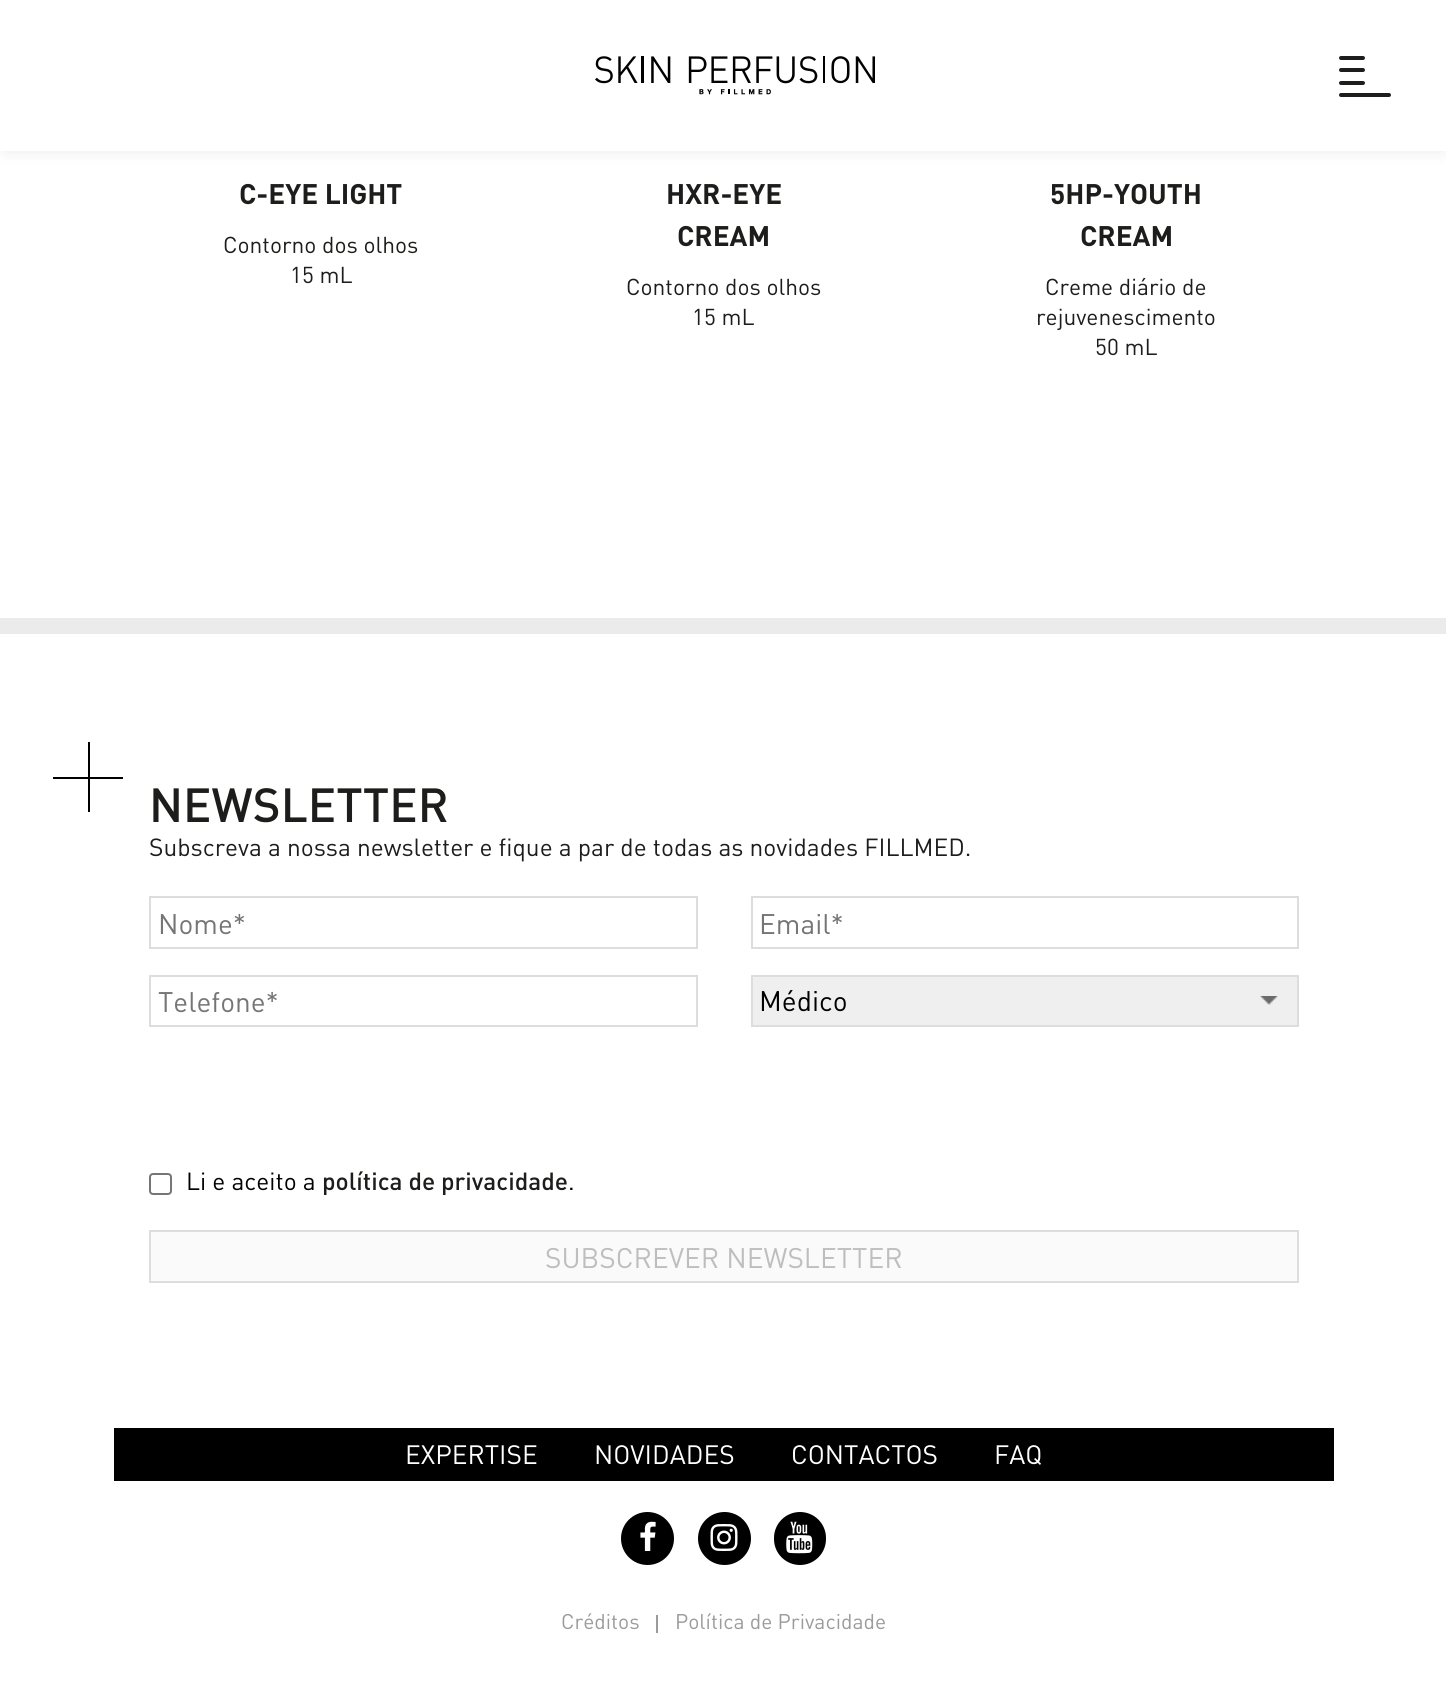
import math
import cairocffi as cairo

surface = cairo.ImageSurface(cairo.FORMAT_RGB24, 1446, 1688)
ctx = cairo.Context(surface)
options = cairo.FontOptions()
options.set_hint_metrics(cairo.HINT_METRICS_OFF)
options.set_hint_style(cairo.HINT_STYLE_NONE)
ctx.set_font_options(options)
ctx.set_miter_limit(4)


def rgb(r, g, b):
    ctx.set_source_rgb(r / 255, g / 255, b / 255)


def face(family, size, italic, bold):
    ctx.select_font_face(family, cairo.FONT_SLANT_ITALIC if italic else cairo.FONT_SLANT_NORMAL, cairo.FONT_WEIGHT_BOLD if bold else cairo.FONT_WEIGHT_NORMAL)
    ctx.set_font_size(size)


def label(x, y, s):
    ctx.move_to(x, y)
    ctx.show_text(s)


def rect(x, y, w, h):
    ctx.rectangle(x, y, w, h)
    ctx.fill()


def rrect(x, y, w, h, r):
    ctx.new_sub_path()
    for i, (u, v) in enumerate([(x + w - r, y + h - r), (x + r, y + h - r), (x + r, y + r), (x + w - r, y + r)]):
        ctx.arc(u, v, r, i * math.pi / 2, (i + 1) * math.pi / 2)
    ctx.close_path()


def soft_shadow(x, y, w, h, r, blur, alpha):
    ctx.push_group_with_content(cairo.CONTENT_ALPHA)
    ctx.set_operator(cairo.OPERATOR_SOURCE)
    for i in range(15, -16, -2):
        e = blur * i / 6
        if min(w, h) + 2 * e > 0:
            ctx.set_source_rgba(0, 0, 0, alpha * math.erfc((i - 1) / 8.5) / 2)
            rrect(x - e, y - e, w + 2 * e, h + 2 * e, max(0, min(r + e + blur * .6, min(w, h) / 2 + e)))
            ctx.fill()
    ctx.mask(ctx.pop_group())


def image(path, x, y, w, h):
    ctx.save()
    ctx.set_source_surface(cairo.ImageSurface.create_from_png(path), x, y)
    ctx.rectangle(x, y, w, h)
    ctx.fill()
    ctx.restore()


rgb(255, 255, 255)
ctx.paint()
rgb(0, 0, 0)
soft_shadow(5, 9, 1437, 140, 0, 9, 0.1)
rgb(255, 255, 255)
rect(0, 0, 1446, 151)
image('image0.png', 595, 56, 280, 39)
rgb(29, 29, 27)
rrect(1339, 56, 26, 4, 2)
ctx.fill()
rrect(1339, 68, 26, 4, 2)
ctx.fill()
rrect(1339, 81, 26, 4, 2)
ctx.fill()
rrect(1339, 93, 52, 4, 2)
ctx.fill()
face('DIN', 28, 0, 1)
label(239, 204, 'C-EYE LIGHT')
face('DIN', 22.75, 0, 0)
label(223, 253, 'Contorno dos olhos')
label(290, 283, '15 mL')
face('DIN', 28, 0, 1)
label(666, 204, 'HXR-EYE')
label(677, 246, 'CREAM')
face('DIN', 22.75, 0, 0)
label(626, 295, 'Contorno dos olhos')
label(692, 325, '15 mL')
face('DIN', 28, 0, 1)
label(1050, 204, '5HP-YOUTH')
label(1080, 246, 'CREAM')
face('DIN', 22.75, 0, 0)
label(1045, 295, 'Creme diário de')
label(1036, 325, 'rejuvenescimento')
label(1095, 355, '50 mL')
rgb(235, 235, 235)
rect(0, 618, 1446, 16)
rgb(0, 0, 0)
rect(53, 777, 70, 2)
rect(88, 742, 2, 70)
face('DIN Medium', 47.25, 0, 0)
rgb(29, 29, 27)
label(149, 822, 'NEWSLETTER')
face('DIN', 24.5, 0, 0)
label(149, 856, 'Subscreva a nossa newsletter e fique a par de todas as novidades FILLMED.')
ctx.rectangle(150, 897, 547, 51)
rgb(221, 221, 221)
ctx.stroke()
face('DIN', 28, 0, 0)
rgb(117, 117, 117)
label(158, 934, 'Nome*')
ctx.rectangle(752, 897, 546, 51)
rgb(221, 221, 221)
ctx.stroke()
rgb(117, 117, 117)
label(759, 934, 'Email*')
ctx.rectangle(150, 976, 547, 50)
rgb(221, 221, 221)
ctx.stroke()
rgb(117, 117, 117)
label(158, 1012, 'Telefone*')
rgb(239, 239, 239)
rect(753, 977, 544, 48)
image('image1.png', 1260, 996, 18, 9)
ctx.rectangle(752, 976, 546, 50)
rgb(221, 221, 221)
ctx.stroke()
rgb(0, 0, 0)
label(759, 1011, 'Médico')
rrect(150, 1174, 21, 20, 3)
rgb(118, 118, 118)
ctx.stroke()
face('DIN', 24.5, 0, 0)
rgb(0, 0, 0)
label(186, 1190, 'Li e aceito a')
face('DIN Medium', 24.5, 0, 0)
rgb(29, 29, 27)
label(322, 1190, 'política de privacidade')
face('DIN', 24.5, 0, 0)
rgb(0, 0, 0)
label(568, 1190, '.')
rgb(250, 250, 250)
ctx.rectangle(150, 1231, 1148, 51)
ctx.fill_preserve()
rgb(221, 221, 221)
ctx.stroke()
face('DIN', 28, 0, 0)
rgb(190, 190, 190)
label(545, 1268, 'SUBSCREVER NEWSLETTER')
rgb(0, 0, 0)
rect(114, 1428, 1220, 53)
face('DIN', 26.25, 0, 0)
rgb(255, 255, 255)
label(405, 1464, 'EXPERTISE')
label(594, 1464, 'NOVIDADES')
label(791, 1464, 'CONTACTOS')
label(994, 1464, 'FAQ')
rgb(0, 0, 0)
ctx.new_path()
ctx.arc(647.5, 1538.5, 25.5, 0, 2 * math.pi)
ctx.fill_preserve()
ctx.stroke()
image('image2.png', 640, 1521, 16, 30)
ctx.arc(724.5, 1538.5, 25.5, 0, 2 * math.pi)
ctx.fill_preserve()
ctx.stroke()
image('image3.png', 710, 1524, 28, 27)
rrect(775, 1513, 50, 51, 25)
ctx.fill_preserve()
ctx.stroke()
image('image4.png', 786, 1521, 27, 33)
face('DIN', 21, 0, 0)
rgb(156, 155, 155)
label(561, 1629, 'Créditos')
rect(656, 1615, 2, 18)
label(675, 1629, 'Política de Privacidade')
surface.write_to_png('render.png')
